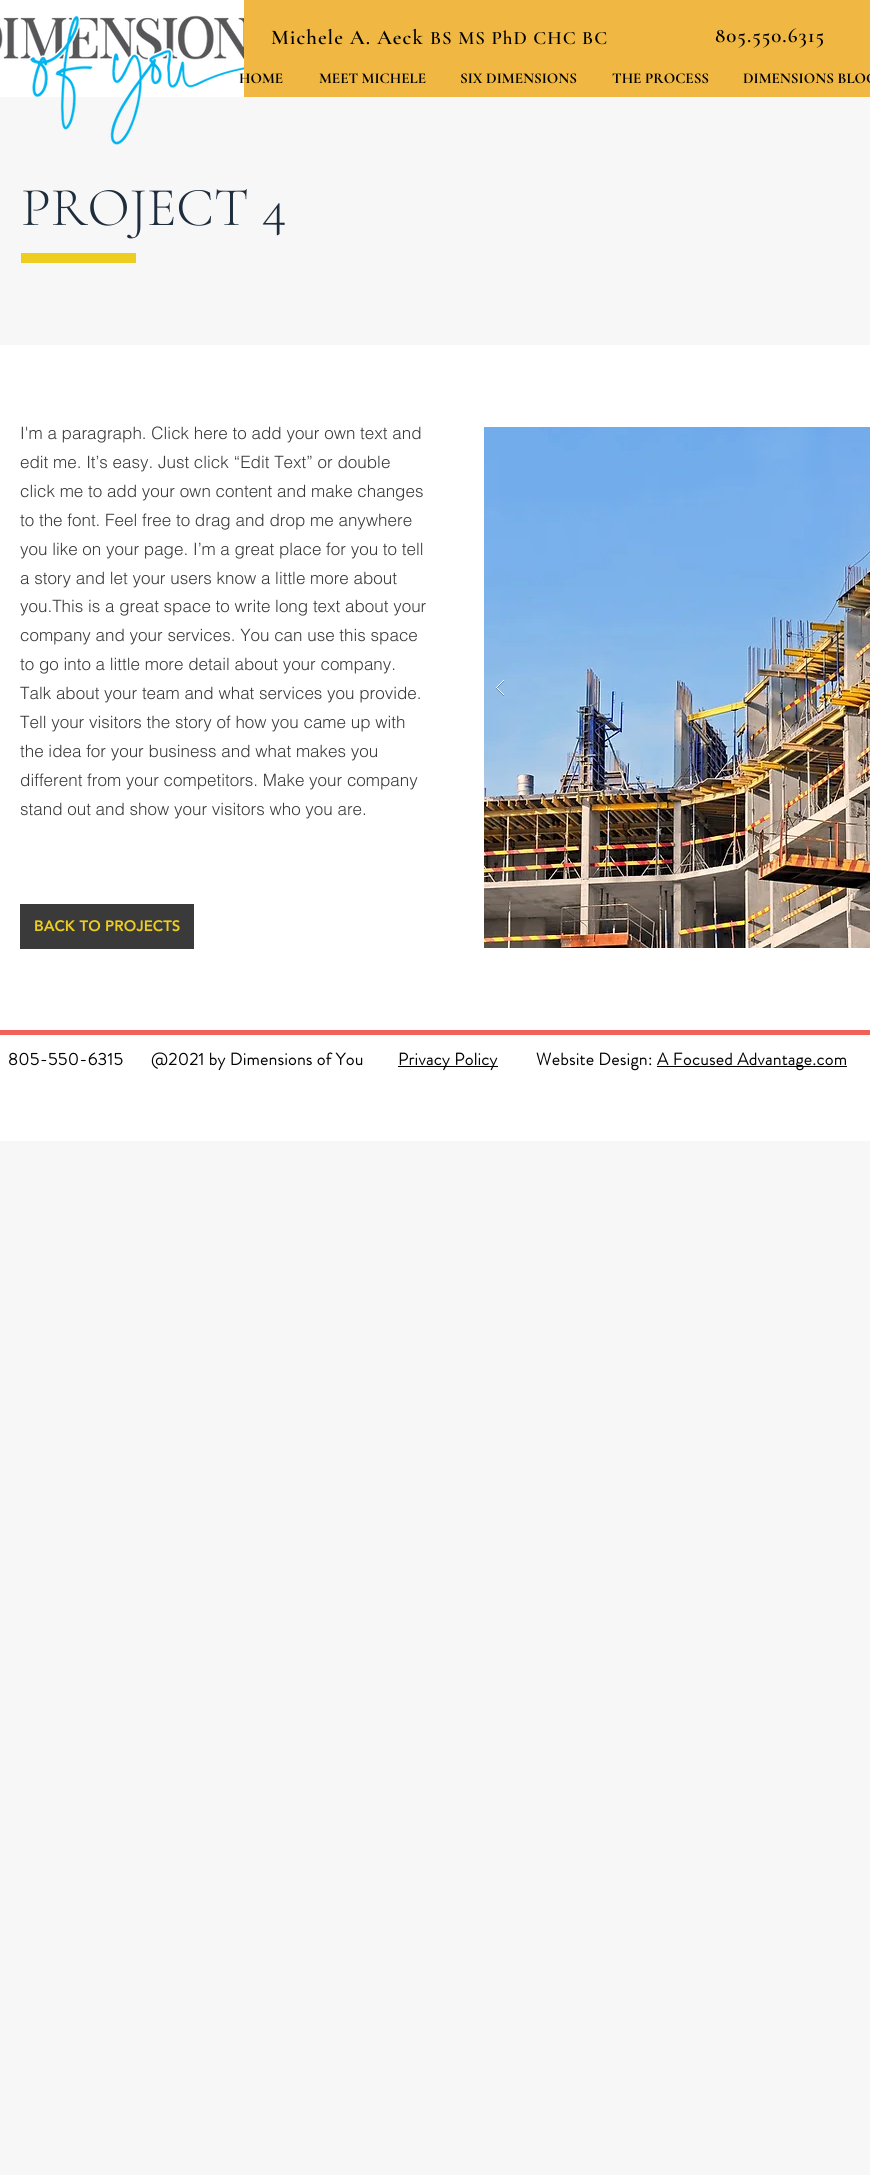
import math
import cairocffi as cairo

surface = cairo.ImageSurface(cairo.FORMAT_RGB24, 870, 2175)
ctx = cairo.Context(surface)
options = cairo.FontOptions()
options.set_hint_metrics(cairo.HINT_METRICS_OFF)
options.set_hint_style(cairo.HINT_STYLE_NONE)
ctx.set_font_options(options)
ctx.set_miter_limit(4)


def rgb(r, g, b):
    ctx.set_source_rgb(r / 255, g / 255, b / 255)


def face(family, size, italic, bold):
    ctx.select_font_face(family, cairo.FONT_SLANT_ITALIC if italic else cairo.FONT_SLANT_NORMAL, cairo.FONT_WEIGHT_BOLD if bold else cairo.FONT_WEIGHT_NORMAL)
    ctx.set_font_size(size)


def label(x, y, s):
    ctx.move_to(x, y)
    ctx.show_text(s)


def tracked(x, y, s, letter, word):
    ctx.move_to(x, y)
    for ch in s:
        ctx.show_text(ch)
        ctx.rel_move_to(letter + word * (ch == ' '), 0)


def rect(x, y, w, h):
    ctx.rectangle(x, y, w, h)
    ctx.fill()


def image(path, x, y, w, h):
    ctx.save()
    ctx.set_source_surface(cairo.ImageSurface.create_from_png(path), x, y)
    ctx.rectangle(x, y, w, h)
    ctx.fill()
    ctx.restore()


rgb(247, 247, 247)
ctx.paint()
rgb(255, 255, 255)
rect(0, 0, 244, 97)
image('image0.png', 0, 15, 244, 130)
rgb(240, 184, 66)
rect(244, 0, 626, 97)
face('Cormorant Garamond SemiBold', 21, 0, 0)
rgb(0, 0, 0)
tracked(271, 44, 'Michele A. Aeck', 1, 0)
face('Cormorant Garamond SemiBold', 19, 0, 0)
tracked(430, 44, 'BS MS PhD CHC BC', 1, 0)
face('Cormorant Garamond SemiBold', 21, 0, 0)
tracked(715, 42, '805.550.6315', 1, 0)
face('Cormorant Garamond', 15, 0, 1)
label(239, 83, 'HOME')
label(319, 83, 'MEET MICHELE')
label(460, 83, 'SIX DIMENSIONS')
label(612, 83, 'THE PROCESS')
label(743, 83, 'DIMENSIONS BLOG')
face('Cormorant Garamond Light', 55, 0, 0)
rgb(30, 45, 59)
label(21, 225, 'PROJECT 4')
rgb(237, 205, 31)
rect(21, 253, 115, 10)
rgb(255, 255, 255)
rect(0, 345, 870, 685)
face('helvetica Light', 17, 0, 0)
rgb(59, 58, 58)
label(20, 439, 'I\'m a paragraph. Click here to add your own text and')
label(20, 468, 'edit me. It’s easy. Just click “Edit Text” or double')
label(20, 497, 'click me to add your own content and make changes')
label(20, 526, 'to the font. Feel free to drag and drop me anywhere')
label(20, 555, 'you like on your page. I’m a great place for you to tell')
label(20, 584, 'a story and let your users know a little more about')
label(20, 612, 'you.This is a great space to write long text about your')
label(20, 641, 'company and your services. You can use this space')
label(20, 670, 'to go into a little more detail about your company.')
label(20, 699, 'Talk about your team and what services you provide.')
label(20, 728, 'Tell your visitors the story of how you came up with')
label(20, 757, 'the idea for your business and what makes you')
label(20, 786, 'different from your competitors. Make your company')
label(20, 815, 'stand out and show your visitors who you are.')
rect(20, 904, 174, 45)
face('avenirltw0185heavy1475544 Black', 15, 0, 0)
rgb(237, 205, 31)
label(34, 931, 'BACK TO PROJECTS')
image('image1.png', 484, 427, 386, 521)
image('image2.png', 496, 680, 8, 16)
rgb(255, 255, 255)
rect(0, 1035, 870, 106)
rgb(241, 97, 87)
rect(0, 1030, 870, 5)
face('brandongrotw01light', 17, 0, 1)
rgb(0, 0, 0)
tracked(8, 1065, '805-550-6315', 0.5, 0)
tracked(151, 1065, '@2021 by Dimensions of You', 0.5, 0)
rect(398, 1066, 100, 1)
tracked(398, 1065, 'Privacy Policy', 0.5, 0)
tracked(536, 1065, 'Website Design:', 0.5, 0)
rect(657, 1066, 190, 1)
tracked(657, 1065, 'A Focused Advantage.com', 0.5, 0)
surface.write_to_png('render.png')
